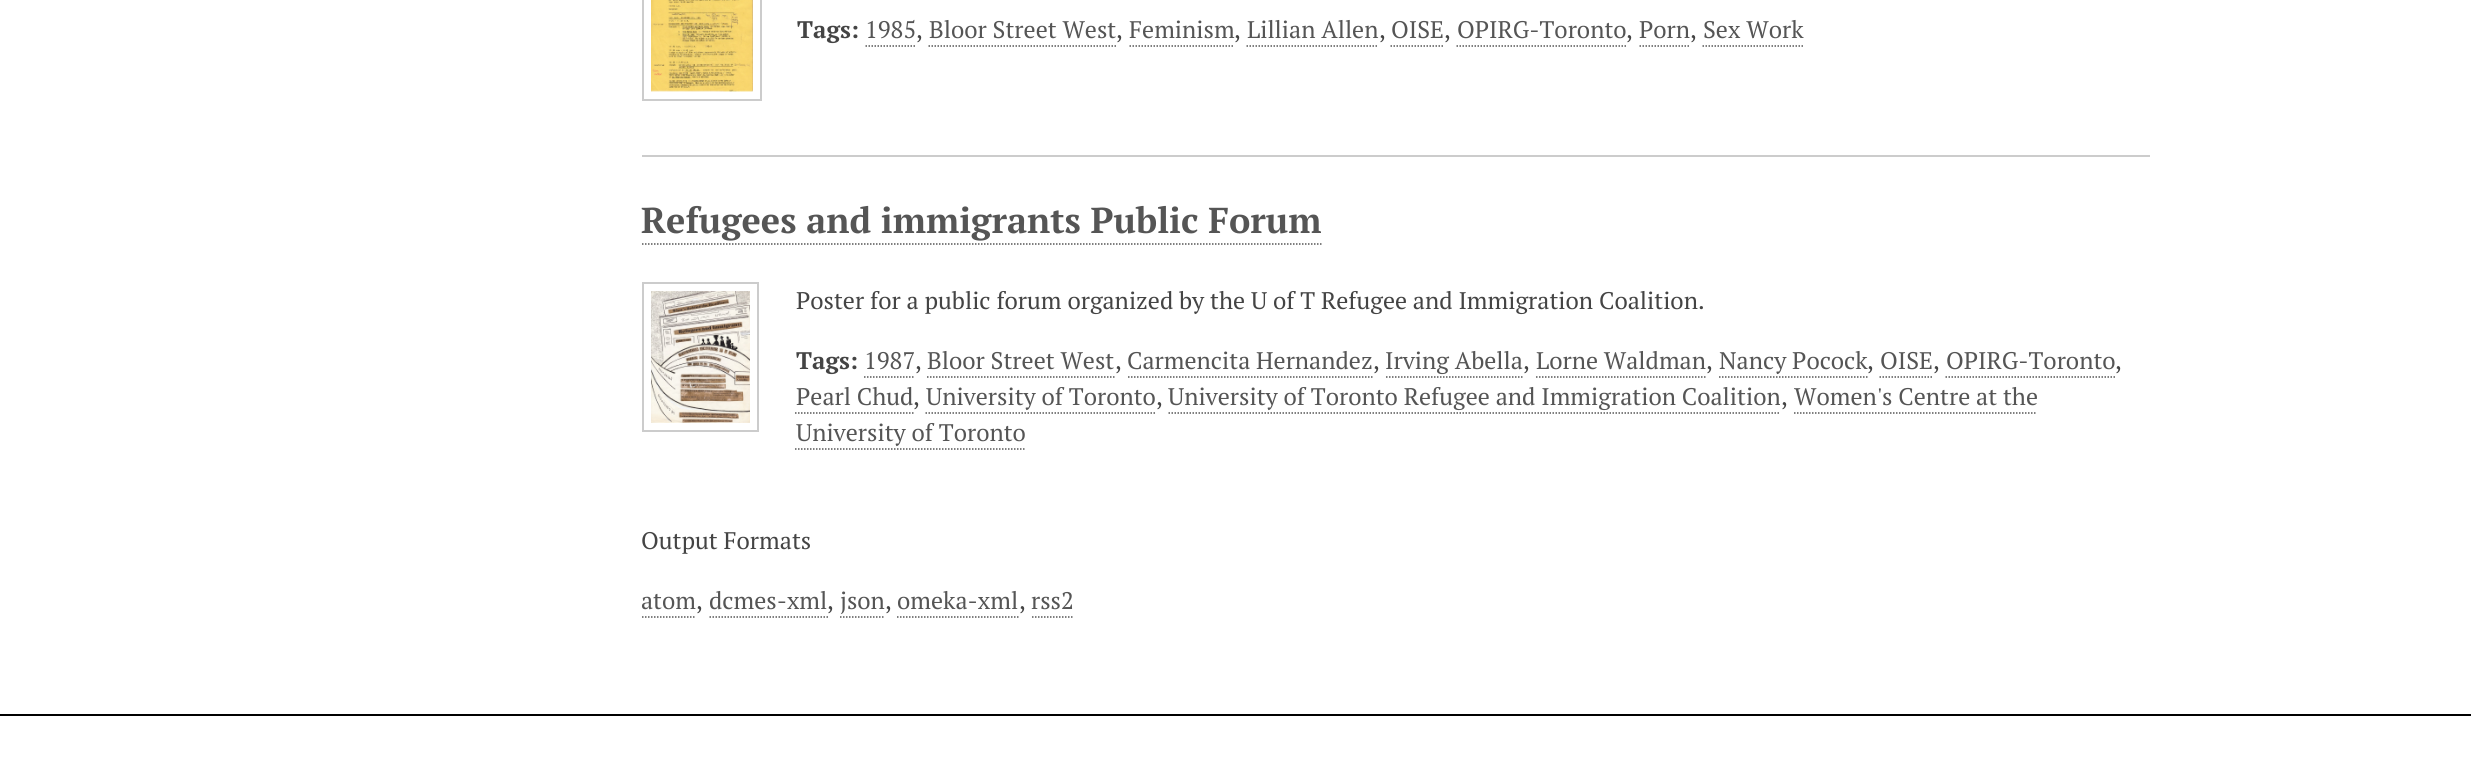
import math
import cairocffi as cairo

surface = cairo.ImageSurface(cairo.FORMAT_RGB24, 2471, 758)
ctx = cairo.Context(surface)
options = cairo.FontOptions()
options.set_hint_metrics(cairo.HINT_METRICS_OFF)
options.set_hint_style(cairo.HINT_STYLE_NONE)
ctx.set_font_options(options)
ctx.set_miter_limit(4)


def rgb(r, g, b):
    ctx.set_source_rgb(r / 255, g / 255, b / 255)


def face(family, size, italic, bold):
    ctx.select_font_face(family, cairo.FONT_SLANT_ITALIC if italic else cairo.FONT_SLANT_NORMAL, cairo.FONT_WEIGHT_BOLD if bold else cairo.FONT_WEIGHT_NORMAL)
    ctx.set_font_size(size)


def label(x, y, s):
    ctx.move_to(x, y)
    ctx.show_text(s)


def rect(x, y, w, h):
    ctx.rectangle(x, y, w, h)
    ctx.fill()


def image(path, x, y, w, h):
    ctx.save()
    ctx.set_source_surface(cairo.ImageSurface.create_from_png(path), x, y)
    ctx.rectangle(x, y, w, h)
    ctx.fill()
    ctx.restore()


rgb(255, 255, 255)
ctx.paint()
ctx.rectangle(643, -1, 118, 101)
rgb(204, 204, 204)
ctx.stroke()
image('image0.png', 651, 0, 102, 92)
face('PT Serif', 24, 0, 1)
rgb(68, 68, 68)
label(797, 38, 'Tags:')
face('PT Serif', 24, 0, 0)
rgb(85, 85, 85)
label(865, 38, '1985')
ctx.new_path()
ctx.move_to(865.5, 46)
ctx.line_to(916.5, 46)
ctx.set_line_width(1.5)
ctx.set_dash([1.5, 1.5])
ctx.stroke()
rgb(68, 68, 68)
label(916, 38, ',')
rgb(85, 85, 85)
label(929, 38, 'Bloor Street West')
ctx.new_path()
ctx.move_to(928.5, 46)
ctx.line_to(1116, 46)
ctx.stroke()
rgb(68, 68, 68)
label(1116, 38, ',')
rgb(85, 85, 85)
label(1129, 38, 'Feminism')
ctx.new_path()
ctx.move_to(1129.5, 46)
ctx.line_to(1234.5, 46)
ctx.stroke()
rgb(68, 68, 68)
label(1234, 38, ',')
rgb(85, 85, 85)
label(1247, 38, 'Lillian Allen')
ctx.new_path()
ctx.move_to(1246.5, 46)
ctx.line_to(1378.5, 46)
ctx.stroke()
rgb(68, 68, 68)
label(1379, 38, ',')
rgb(85, 85, 85)
label(1391, 38, 'OISE')
ctx.new_path()
ctx.move_to(1390.5, 46)
ctx.line_to(1444.5, 46)
ctx.stroke()
rgb(68, 68, 68)
label(1444, 38, ',')
rgb(85, 85, 85)
label(1457, 38, 'OPIRG-Toronto')
ctx.new_path()
ctx.move_to(1456.5, 46)
ctx.line_to(1626, 46)
ctx.stroke()
rgb(68, 68, 68)
label(1626, 38, ',')
rgb(85, 85, 85)
label(1639, 38, 'Porn')
ctx.new_path()
ctx.move_to(1639.5, 46)
ctx.line_to(1690.5, 46)
ctx.stroke()
rgb(68, 68, 68)
label(1690, 38, ',')
rgb(85, 85, 85)
label(1703, 38, 'Sex Work')
ctx.new_path()
ctx.move_to(1702.5, 46)
ctx.line_to(1803, 46)
ctx.stroke()
rgb(204, 204, 204)
rect(642, 155, 1508, 2)
face('PT Serif', 36, 0, 1)
rgb(85, 85, 85)
label(641, 233, 'Refugees and immigrants Public Forum')
ctx.new_path()
ctx.move_to(642, 244)
ctx.line_to(1321.5, 244)
ctx.stroke()
ctx.rectangle(643, 283, 115, 148)
rgb(204, 204, 204)
ctx.set_line_width(2)
ctx.set_dash([])
ctx.stroke()
image('image1.png', 651, 291, 99, 132)
face('PT Serif', 24, 0, 0)
rgb(68, 68, 68)
label(796, 309, 'Poster for a public forum organized by the U of T Refugee and Immigration Coalition.')
face('PT Serif', 24, 0, 1)
label(796, 369, 'Tags:')
face('PT Serif', 24, 0, 0)
rgb(85, 85, 85)
label(864, 369, '1987')
ctx.new_path()
ctx.move_to(864, 377)
ctx.line_to(915, 377)
ctx.set_line_width(1.5)
ctx.set_dash([1.5, 1.5])
ctx.stroke()
rgb(68, 68, 68)
label(915, 369, ',')
rgb(85, 85, 85)
label(927, 369, 'Bloor Street West')
ctx.new_path()
ctx.move_to(927, 377)
ctx.line_to(1114.5, 377)
ctx.stroke()
rgb(68, 68, 68)
label(1115, 369, ',')
rgb(85, 85, 85)
label(1127, 369, 'Carmencita Hernandez')
ctx.new_path()
ctx.move_to(1128, 377)
ctx.line_to(1372.5, 377)
ctx.stroke()
rgb(68, 68, 68)
label(1373, 369, ',')
rgb(85, 85, 85)
label(1385, 369, 'Irving Abella')
ctx.new_path()
ctx.move_to(1386, 377)
ctx.line_to(1524, 377)
ctx.stroke()
rgb(68, 68, 68)
label(1523, 369, ',')
rgb(85, 85, 85)
label(1536, 369, 'Lorne Waldman')
ctx.new_path()
ctx.move_to(1536, 377)
ctx.line_to(1705.5, 377)
ctx.stroke()
rgb(68, 68, 68)
label(1706, 369, ',')
rgb(85, 85, 85)
label(1719, 369, 'Nancy Pocock')
ctx.new_path()
ctx.move_to(1719, 377)
ctx.line_to(1867.5, 377)
ctx.stroke()
rgb(68, 68, 68)
label(1867, 369, ',')
rgb(85, 85, 85)
label(1880, 369, 'OISE')
ctx.new_path()
ctx.move_to(1879.5, 377)
ctx.line_to(1933.5, 377)
ctx.stroke()
rgb(68, 68, 68)
label(1933, 369, ',')
rgb(85, 85, 85)
label(1946, 369, 'OPIRG-Toronto')
ctx.new_path()
ctx.move_to(1945.5, 377)
ctx.line_to(2115, 377)
ctx.stroke()
rgb(68, 68, 68)
label(2115, 369, ',')
rgb(85, 85, 85)
label(796, 405, 'Pearl Chud')
ctx.new_path()
ctx.move_to(795, 413)
ctx.line_to(913.5, 413)
ctx.stroke()
rgb(68, 68, 68)
label(913, 405, ',')
rgb(85, 85, 85)
label(926, 405, 'University of Toronto')
ctx.new_path()
ctx.move_to(925.5, 413)
ctx.line_to(1155, 413)
ctx.stroke()
rgb(68, 68, 68)
label(1156, 405, ',')
rgb(85, 85, 85)
label(1168, 405, 'University of Toronto Refugee and Immigration Coalition')
ctx.new_path()
ctx.move_to(1168.5, 413)
ctx.line_to(1780.5, 413)
ctx.stroke()
rgb(68, 68, 68)
label(1781, 405, ',')
rgb(85, 85, 85)
label(1794, 405, 'Women\'s Centre at the')
ctx.new_path()
ctx.move_to(1794, 413)
ctx.line_to(2037, 413)
ctx.stroke()
label(796, 441, 'University of Toronto')
ctx.new_path()
ctx.move_to(795, 449)
ctx.line_to(1026, 449)
ctx.stroke()
rgb(68, 68, 68)
label(641, 549, 'Output Formats')
rgb(85, 85, 85)
label(641, 609, 'atom')
ctx.new_path()
ctx.move_to(642, 617)
ctx.line_to(696, 617)
ctx.stroke()
rgb(68, 68, 68)
label(696, 609, ',')
rgb(85, 85, 85)
label(709, 609, 'dcmes-xml')
ctx.new_path()
ctx.move_to(709.5, 617)
ctx.line_to(828, 617)
ctx.stroke()
rgb(68, 68, 68)
label(827, 609, ',')
rgb(85, 85, 85)
label(840, 609, 'json')
ctx.new_path()
ctx.move_to(840, 617)
ctx.line_to(885, 617)
ctx.stroke()
rgb(68, 68, 68)
label(885, 609, ',')
rgb(85, 85, 85)
label(897, 609, 'omeka-xml')
ctx.new_path()
ctx.move_to(897, 617)
ctx.line_to(1018.5, 617)
ctx.stroke()
rgb(68, 68, 68)
label(1019, 609, ',')
rgb(85, 85, 85)
label(1031, 609, 'rss2')
ctx.new_path()
ctx.move_to(1032, 617)
ctx.line_to(1074, 617)
ctx.stroke()
rgb(0, 0, 0)
rect(0, 714, 2471, 2)
surface.write_to_png('render.png')
